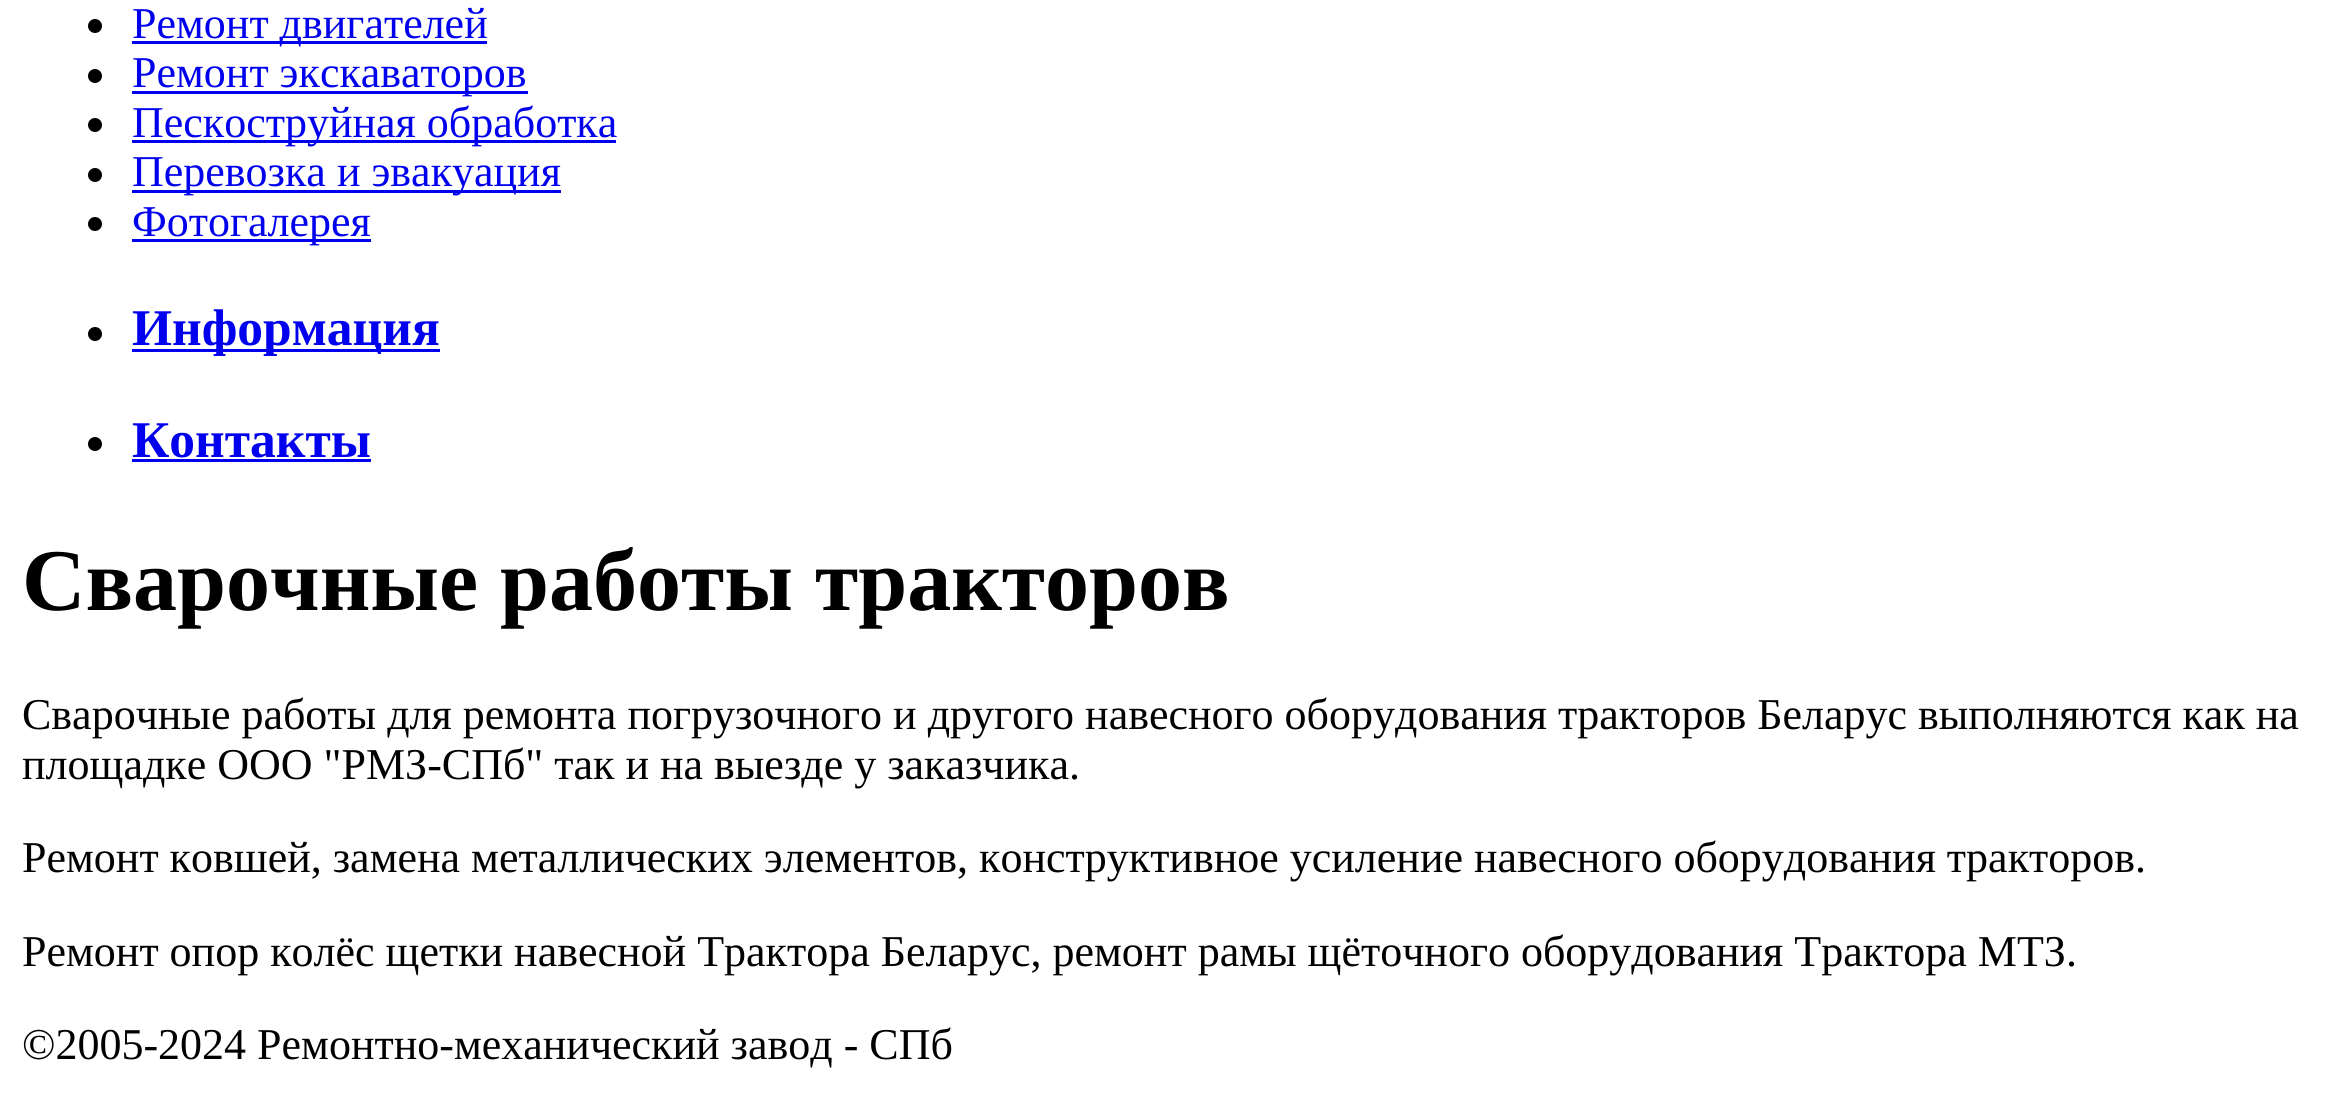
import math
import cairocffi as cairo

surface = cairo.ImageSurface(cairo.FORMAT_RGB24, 2344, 1113)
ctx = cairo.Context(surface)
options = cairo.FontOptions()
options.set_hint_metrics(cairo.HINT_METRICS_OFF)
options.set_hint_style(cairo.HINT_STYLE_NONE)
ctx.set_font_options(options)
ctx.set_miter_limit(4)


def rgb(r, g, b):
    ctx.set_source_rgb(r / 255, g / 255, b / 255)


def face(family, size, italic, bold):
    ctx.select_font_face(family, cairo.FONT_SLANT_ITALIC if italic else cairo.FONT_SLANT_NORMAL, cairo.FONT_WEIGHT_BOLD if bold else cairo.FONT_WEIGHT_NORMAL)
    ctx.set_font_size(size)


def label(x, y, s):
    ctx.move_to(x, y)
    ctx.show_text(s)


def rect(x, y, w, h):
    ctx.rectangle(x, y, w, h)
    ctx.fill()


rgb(255, 255, 255)
ctx.paint()
rgb(0, 0, 0)
ctx.arc(95, 26, 7, 0, 2 * math.pi)
ctx.fill()
rgb(0, 0, 238)
rect(132, 41, 355, 3)
face('Liberation Serif', 44, 0, 0)
label(132, 38, 'Ремонт двигателей')
rgb(0, 0, 0)
ctx.new_path()
ctx.arc(95, 76, 7, 0, 2 * math.pi)
ctx.fill()
rgb(0, 0, 238)
rect(132, 91, 396, 3)
label(132, 87, 'Ремонт экскаваторов')
rgb(0, 0, 0)
ctx.new_path()
ctx.arc(95, 125, 7, 0, 2 * math.pi)
ctx.fill()
rgb(0, 0, 238)
rect(132, 140, 484, 3)
label(132, 137, 'Пескоструйная обработка')
rgb(0, 0, 0)
ctx.new_path()
ctx.arc(95, 175, 7, 0, 2 * math.pi)
ctx.fill()
rgb(0, 0, 238)
rect(132, 190, 429, 3)
label(132, 186, 'Перевозка и эвакуация')
rgb(0, 0, 0)
ctx.new_path()
ctx.arc(95, 224, 7, 0, 2 * math.pi)
ctx.fill()
rgb(0, 0, 238)
rect(132, 239, 239, 3)
label(132, 236, 'Фотогалерея')
rgb(0, 0, 0)
ctx.new_path()
ctx.arc(95, 334, 7, 0, 2 * math.pi)
ctx.fill()
rgb(0, 0, 238)
rect(132, 349, 308, 3)
face('Liberation Serif', 51.5, 0, 1)
label(132, 345, 'Информация')
rgb(0, 0, 0)
ctx.new_path()
ctx.arc(95, 444, 7, 0, 2 * math.pi)
ctx.fill()
rgb(0, 0, 238)
label(132, 457, 'Контакты')
rect(132, 459, 239, 3)
face('Liberation Serif', 88, 0, 1)
rgb(0, 0, 0)
label(22, 610, 'Сварочные работы тракторов')
face('Liberation Serif', 44, 0, 0)
label(22, 729, 'Сварочные работы для ремонта погрузочного и другого навесного оборудования тракторов Беларус выполняются как на')
label(22, 779, 'площадке ООО "РМЗ-СПб" так и на выезде у заказчика.')
label(22, 872, 'Ремонт ковшей, замена металлических элементов, конструктивное усиление навесного оборудования тракторов.')
label(22, 966, 'Ремонт опор колёс щетки навесной Трактора Беларус, ремонт рамы щёточного оборудования Трактора МТЗ.')
label(22, 1059, '©2005-2024 Ремонтно-механический завод - СПб')
surface.write_to_png('render.png')
